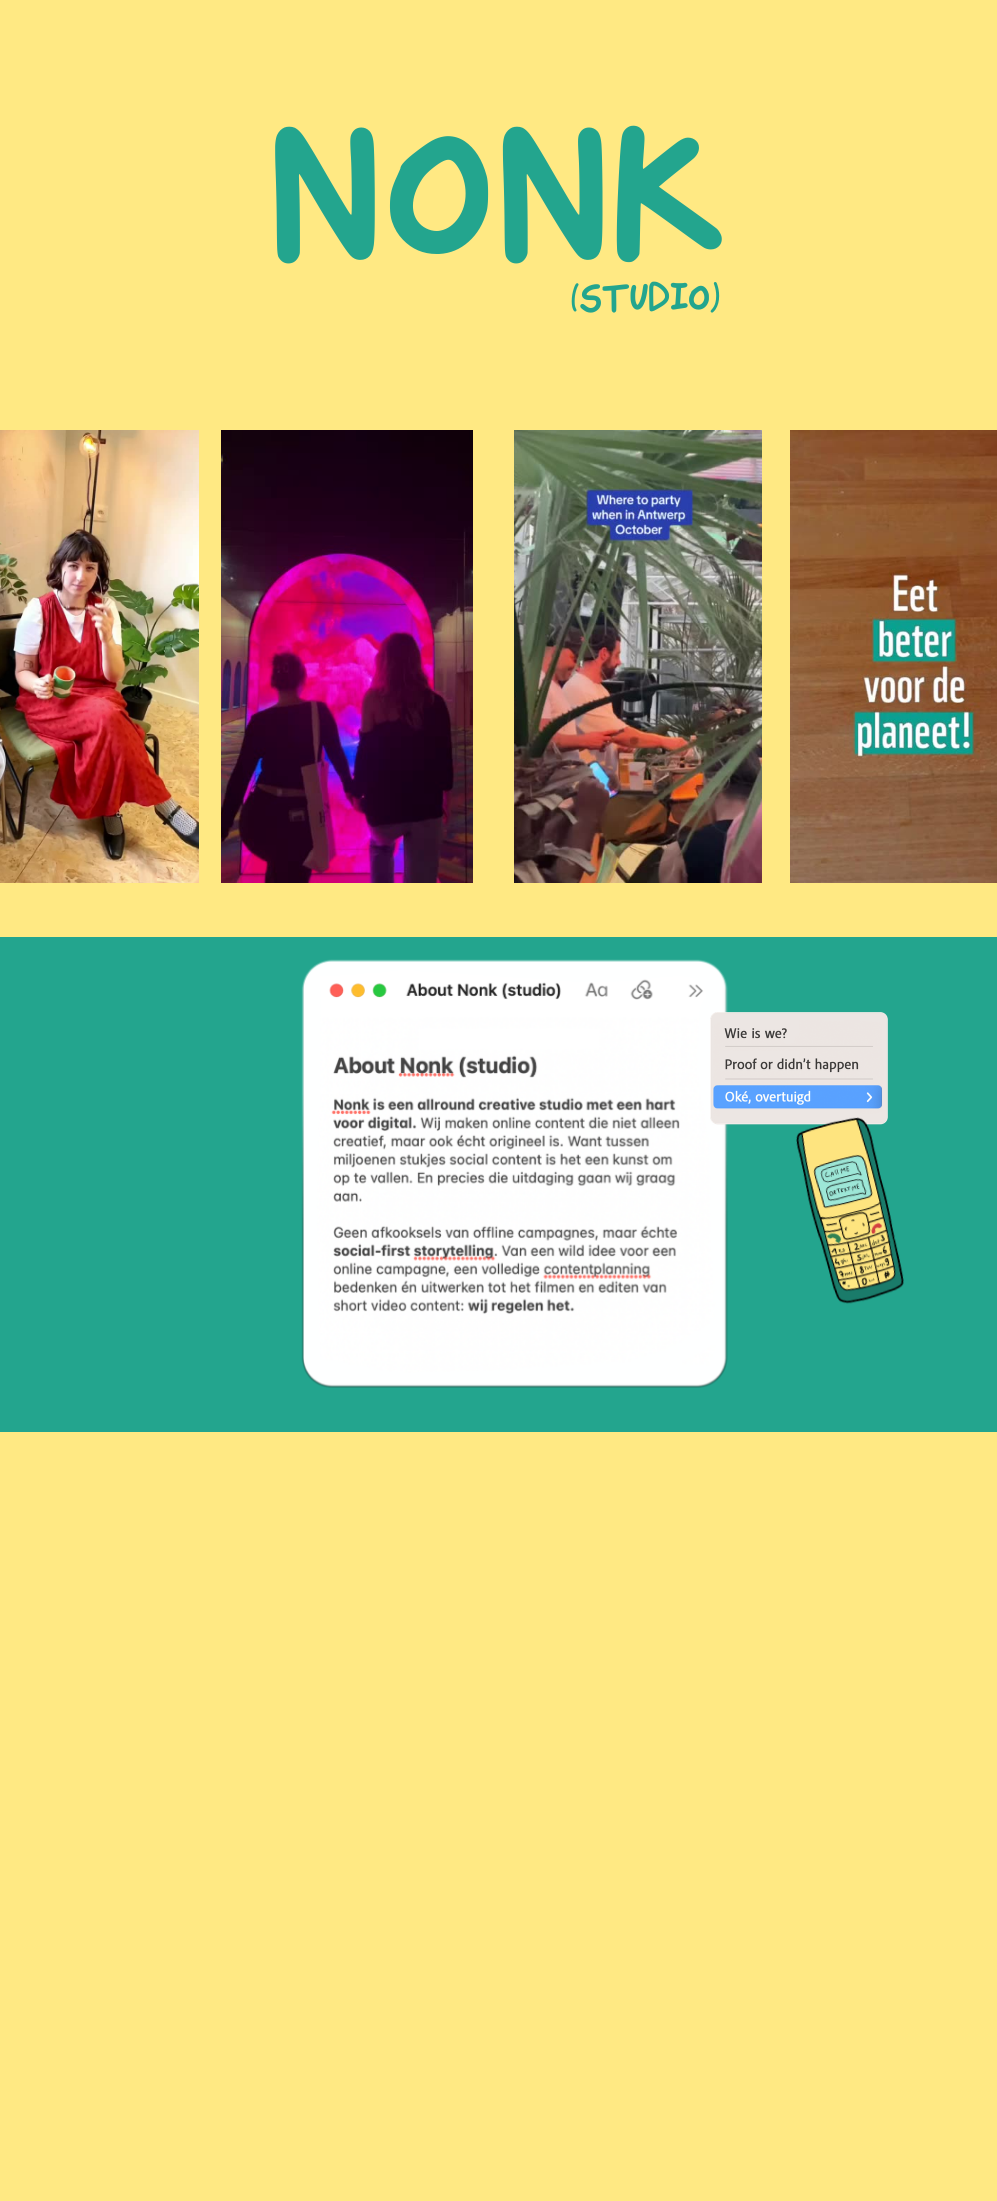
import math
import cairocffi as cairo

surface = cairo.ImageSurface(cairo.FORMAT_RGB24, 997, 2201)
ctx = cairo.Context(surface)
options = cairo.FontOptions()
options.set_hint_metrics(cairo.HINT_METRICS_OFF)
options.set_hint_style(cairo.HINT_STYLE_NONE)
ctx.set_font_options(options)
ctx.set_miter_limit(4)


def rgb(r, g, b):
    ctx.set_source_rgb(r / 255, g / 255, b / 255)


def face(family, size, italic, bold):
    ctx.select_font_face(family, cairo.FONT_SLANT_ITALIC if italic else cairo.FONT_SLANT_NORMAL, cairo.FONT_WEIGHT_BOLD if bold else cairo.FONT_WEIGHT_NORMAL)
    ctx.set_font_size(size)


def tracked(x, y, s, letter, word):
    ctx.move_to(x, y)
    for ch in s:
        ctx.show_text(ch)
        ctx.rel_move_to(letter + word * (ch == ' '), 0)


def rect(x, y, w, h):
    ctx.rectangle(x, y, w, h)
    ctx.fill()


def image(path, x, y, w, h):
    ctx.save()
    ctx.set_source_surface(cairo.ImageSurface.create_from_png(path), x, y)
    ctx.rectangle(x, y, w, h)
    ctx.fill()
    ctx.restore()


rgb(255, 233, 131)
ctx.paint()
face('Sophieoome', 163, 0, 0)
rgb(35, 165, 142)
tracked(267, 246, 'NONK', -2, 0)
face('Sophieoome', 33, 0, 0)
tracked(570, 308, '(STUDIO)', -2, 0)
image('image0.png', 0, 430, 199, 453)
image('image1.png', 221, 430, 252, 453)
image('image2.png', 514, 430, 248, 453)
image('image3.png', 790, 430, 207, 453)
rect(0, 937, 997, 495)
image('image4.png', 301, 959, 427, 429)
image('image5.png', 710, 1012, 178, 113)
image('image6.png', 796, 1117, 108, 187)
surface.write_to_png('render.png')
